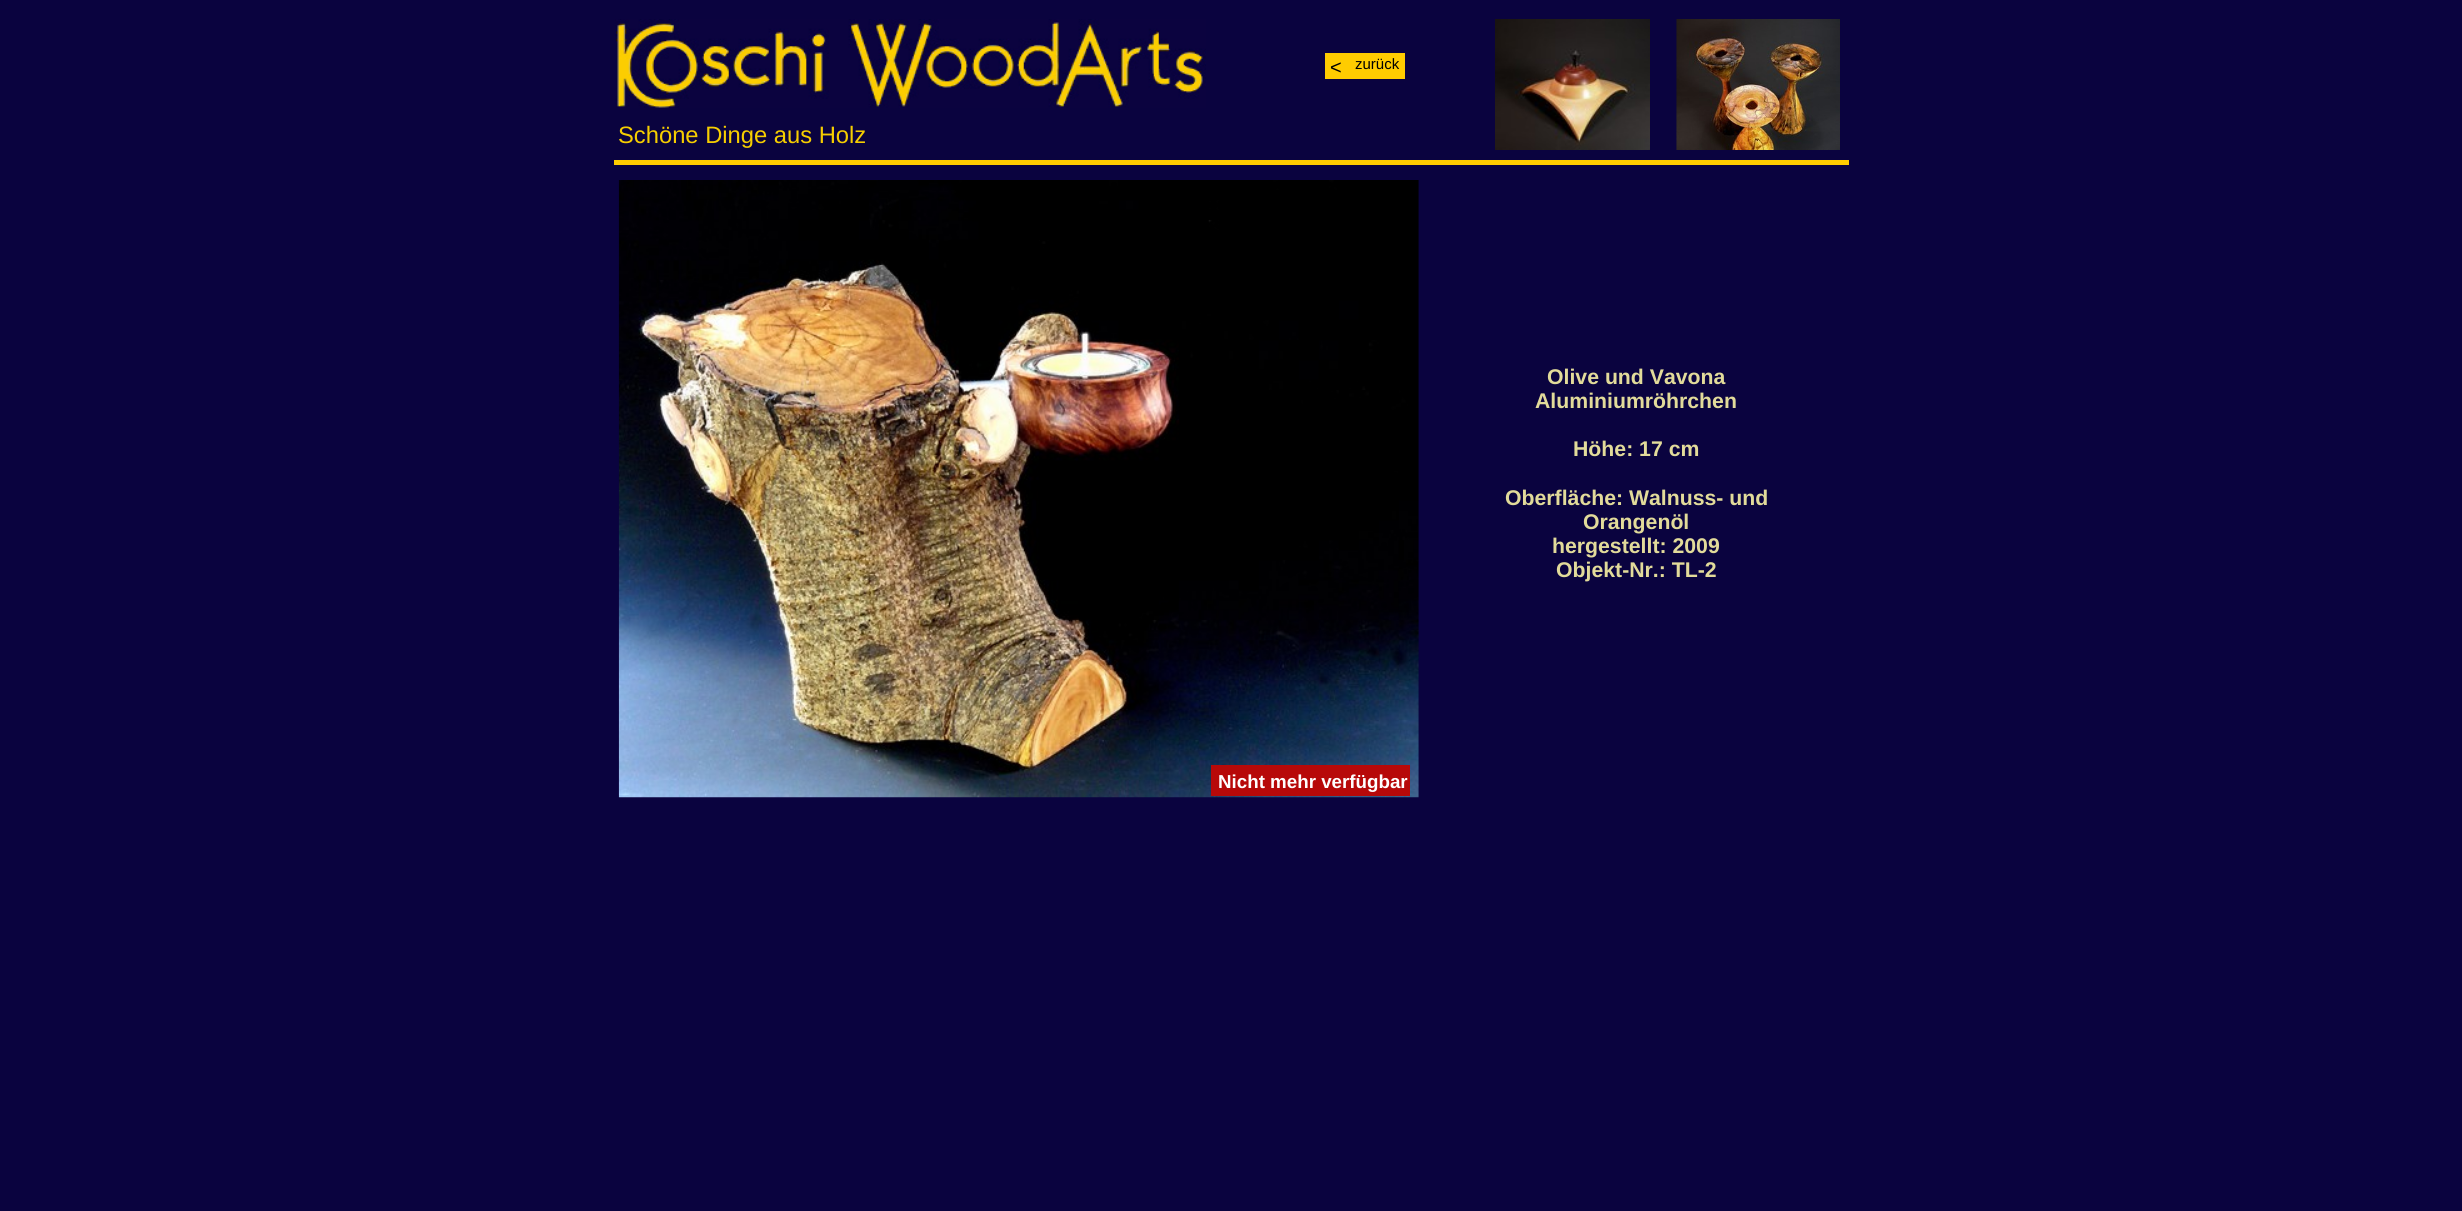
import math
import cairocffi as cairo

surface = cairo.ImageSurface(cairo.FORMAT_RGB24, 2462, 1211)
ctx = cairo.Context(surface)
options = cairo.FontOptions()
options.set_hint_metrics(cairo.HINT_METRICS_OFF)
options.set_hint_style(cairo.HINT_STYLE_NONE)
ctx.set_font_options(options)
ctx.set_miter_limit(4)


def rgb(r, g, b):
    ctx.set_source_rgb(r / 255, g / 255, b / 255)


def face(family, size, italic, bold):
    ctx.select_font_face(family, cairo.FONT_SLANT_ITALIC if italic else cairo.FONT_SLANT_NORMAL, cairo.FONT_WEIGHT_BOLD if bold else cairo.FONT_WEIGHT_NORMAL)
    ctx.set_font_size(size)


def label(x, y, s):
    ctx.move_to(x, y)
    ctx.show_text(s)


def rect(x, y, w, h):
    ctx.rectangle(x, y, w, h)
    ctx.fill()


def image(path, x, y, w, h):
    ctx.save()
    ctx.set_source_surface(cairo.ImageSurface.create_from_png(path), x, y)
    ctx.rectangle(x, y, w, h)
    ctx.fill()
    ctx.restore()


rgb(10, 3, 63)
ctx.paint()
rgb(255, 204, 0)
rect(1325, 53, 80, 26)
face('Liberation Sans', 20, 0, 0)
rgb(0, 0, 0)
label(1330, 74, '<')
face('Liberation Sans', 15, 0, 0)
label(1355, 69, 'zurück')
rgb(255, 204, 0)
rect(614, 160, 1235, 5)
image('image0.png', 615, 19, 591, 89)
image('image1.png', 1495, 19, 155, 131)
image('image2.png', 1676, 19, 164, 131)
face('Liberation Sans', 23.75, 0, 0)
rgb(246, 206, 0)
label(618, 143, 'Schöne Dinge aus Holz')
image('image3.png', 618, 180, 801, 618)
face('Liberation Sans', 21.25, 0, 1)
rgb(226, 219, 154)
label(1547, 384, 'Olive und Vavona')
label(1535, 408, 'Aluminiumröhrchen')
label(1573, 456, 'Höhe: 17 cm')
label(1505, 505, 'Oberfläche: Walnuss- und')
label(1583, 529, 'Orangenöl')
label(1552, 553, 'hergestellt: 2009')
label(1556, 577, 'Objekt-Nr.: TL-2')
rgb(183, 9, 9)
rect(1211, 765, 199, 31)
face('Liberation Sans', 18.75, 0, 1)
rgb(255, 255, 255)
label(1218, 788, 'Nicht mehr verfügbar')
surface.write_to_png('render.png')
